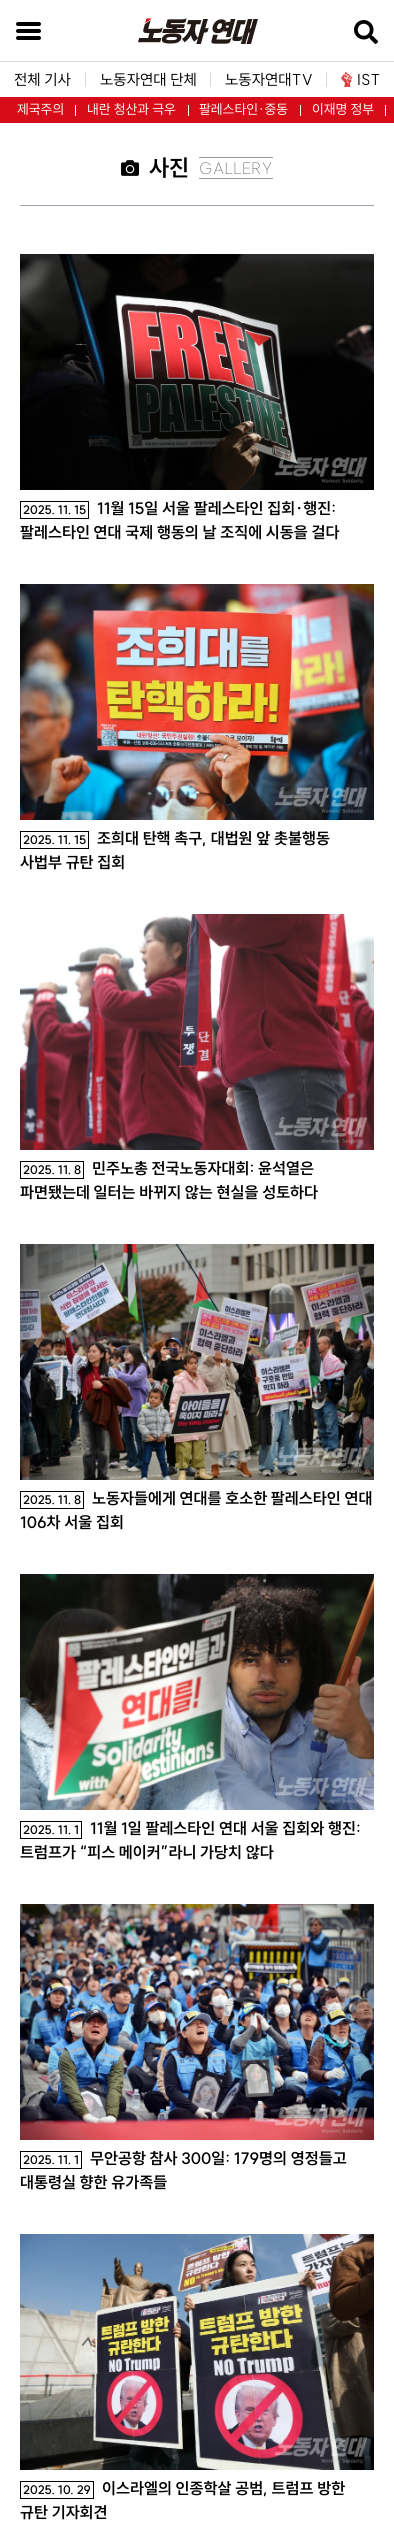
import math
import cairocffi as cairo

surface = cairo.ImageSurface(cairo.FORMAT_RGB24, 394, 2532)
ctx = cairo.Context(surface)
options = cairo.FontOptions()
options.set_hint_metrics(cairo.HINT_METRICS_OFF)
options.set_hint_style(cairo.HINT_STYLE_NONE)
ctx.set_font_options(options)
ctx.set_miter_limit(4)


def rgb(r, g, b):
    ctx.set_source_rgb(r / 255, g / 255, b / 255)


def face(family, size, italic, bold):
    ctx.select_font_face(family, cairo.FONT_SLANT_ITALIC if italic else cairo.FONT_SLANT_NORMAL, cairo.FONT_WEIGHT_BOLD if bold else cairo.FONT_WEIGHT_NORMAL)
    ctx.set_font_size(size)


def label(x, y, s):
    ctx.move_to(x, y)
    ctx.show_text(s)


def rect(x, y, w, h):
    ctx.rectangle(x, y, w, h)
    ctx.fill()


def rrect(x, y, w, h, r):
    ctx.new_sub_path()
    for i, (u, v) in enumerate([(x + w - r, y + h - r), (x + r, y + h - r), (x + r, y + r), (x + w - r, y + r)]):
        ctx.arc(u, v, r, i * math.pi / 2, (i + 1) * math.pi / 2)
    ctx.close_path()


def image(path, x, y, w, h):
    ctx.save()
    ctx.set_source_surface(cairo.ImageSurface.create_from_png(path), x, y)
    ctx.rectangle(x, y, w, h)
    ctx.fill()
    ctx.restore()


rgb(255, 255, 255)
ctx.paint()
rgb(0, 0, 0)
rrect(16, 22, 25, 4, 2)
ctx.fill()
rrect(16, 29, 25, 4, 2)
ctx.fill()
rrect(16, 36, 25, 4, 2)
ctx.fill()
image('image0.png', 138, 18, 120, 26)
image('image1.png', 354, 20, 24, 24)
rgb(218, 218, 218)
rect(0, 61, 394, 1)
rect(85, 72, 1, 15)
face('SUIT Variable', 15.25, 0, 0)
rgb(0, 0, 0)
label(14, 85, '전체 기사')
rgb(218, 218, 218)
rect(210, 72, 1, 15)
rgb(0, 0, 0)
label(100, 85, '노동자연대 단체')
rgb(218, 218, 218)
rect(326, 72, 1, 15)
rgb(0, 0, 0)
label(225, 85, '노동자연대TV')
image('image2.png', 341, 72, 12, 15)
label(357, 85, 'IST')
rgb(216, 12, 24)
rect(0, 97, 394, 26)
face('SUIT Variable', 13.5, 0, 0)
rgb(255, 255, 255)
label(17, 114, '제국주의')
rect(75, 105, 1, 11)
label(87, 114, '내란 청산과 극우')
rect(188, 105, 1, 11)
label(199, 114, '팔레스타인·중동')
rect(300, 105, 1, 11)
label(312, 114, '이재명 정부')
rect(385, 105, 1, 11)
image('image3.png', 121, 160, 18, 16)
face('SUIT Variable', 23, 0, 1)
rgb(0, 0, 0)
label(149, 176, '사진')
rgb(147, 153, 161)
rect(199, 157, 74, 1)
rect(199, 178, 74, 1)
face('SUIT Variable Thin', 16, 0, 0)
rgb(102, 102, 102)
label(199, 174, 'GALLERY')
rgb(156, 163, 175)
rect(20, 205, 354, 1)
image('image4.png', 20, 254, 354, 236)
ctx.rectangle(20.5, 501.5, 68, 17)
rgb(0, 0, 0)
ctx.set_line_width(1)
ctx.stroke()
face('SUIT Variable', 12, 0, 1)
label(23, 514, '2025. 11. 15')
face('SUIT Variable', 16, 0, 1)
label(97, 514, '11월 15일 서울 팔레스타인 집회·행진:')
label(20, 538, '팔레스타인 연대 국제 행동의 날 조직에 시동을 걸다')
image('image5.png', 20, 584, 354, 236)
ctx.rectangle(20.5, 831.5, 68, 17)
ctx.stroke()
face('SUIT Variable', 12, 0, 1)
label(23, 844, '2025. 11. 15')
face('SUIT Variable', 16, 0, 1)
label(97, 844, '조희대 탄핵 촉구, 대법원 앞 촛불행동')
label(20, 868, '사법부 규탄 집회')
image('image6.png', 20, 914, 354, 236)
ctx.rectangle(20.5, 1161.5, 63, 17)
ctx.stroke()
face('SUIT Variable', 12, 0, 1)
label(23, 1174, '2025. 11. 8')
face('SUIT Variable', 16, 0, 1)
label(92, 1174, '민주노총 전국노동자대회: 윤석열은')
label(20, 1198, '파면됐는데 일터는 바뀌지 않는 현실을 성토하다')
image('image7.png', 20, 1244, 354, 236)
ctx.rectangle(20.5, 1491.5, 63, 17)
ctx.stroke()
face('SUIT Variable', 12, 0, 1)
label(23, 1504, '2025. 11. 8')
face('SUIT Variable', 16, 0, 1)
label(92, 1504, '노동자들에게 연대를 호소한 팔레스타인 연대')
label(20, 1528, '106차 서울 집회')
image('image8.png', 20, 1574, 354, 236)
ctx.rectangle(20.5, 1821.5, 61, 17)
ctx.stroke()
face('SUIT Variable', 12, 0, 1)
label(23, 1834, '2025. 11. 1')
face('SUIT Variable', 16, 0, 1)
label(90, 1834, '11월 1일 팔레스타인 연대 서울 집회와 행진:')
label(20, 1858, '트럼프가 “피스 메이커”라니 가당치 않다')
image('image9.png', 20, 1904, 354, 236)
ctx.rectangle(20.5, 2151.5, 61, 17)
ctx.stroke()
face('SUIT Variable', 12, 0, 1)
label(23, 2164, '2025. 11. 1')
face('SUIT Variable', 16, 0, 1)
label(90, 2164, '무안공항 참사 300일: 179명의 영정들고')
label(20, 2188, '대통령실 향한 유가족들')
image('image10.png', 20, 2234, 354, 236)
ctx.rectangle(20.5, 2481.5, 73, 17)
ctx.stroke()
face('SUIT Variable', 12, 0, 1)
label(23, 2494, '2025. 10. 29')
face('SUIT Variable', 16, 0, 1)
label(102, 2494, '이스라엘의 인종학살 공범, 트럼프 방한')
label(20, 2518, '규탄 기자회견')
surface.write_to_png('render.png')
